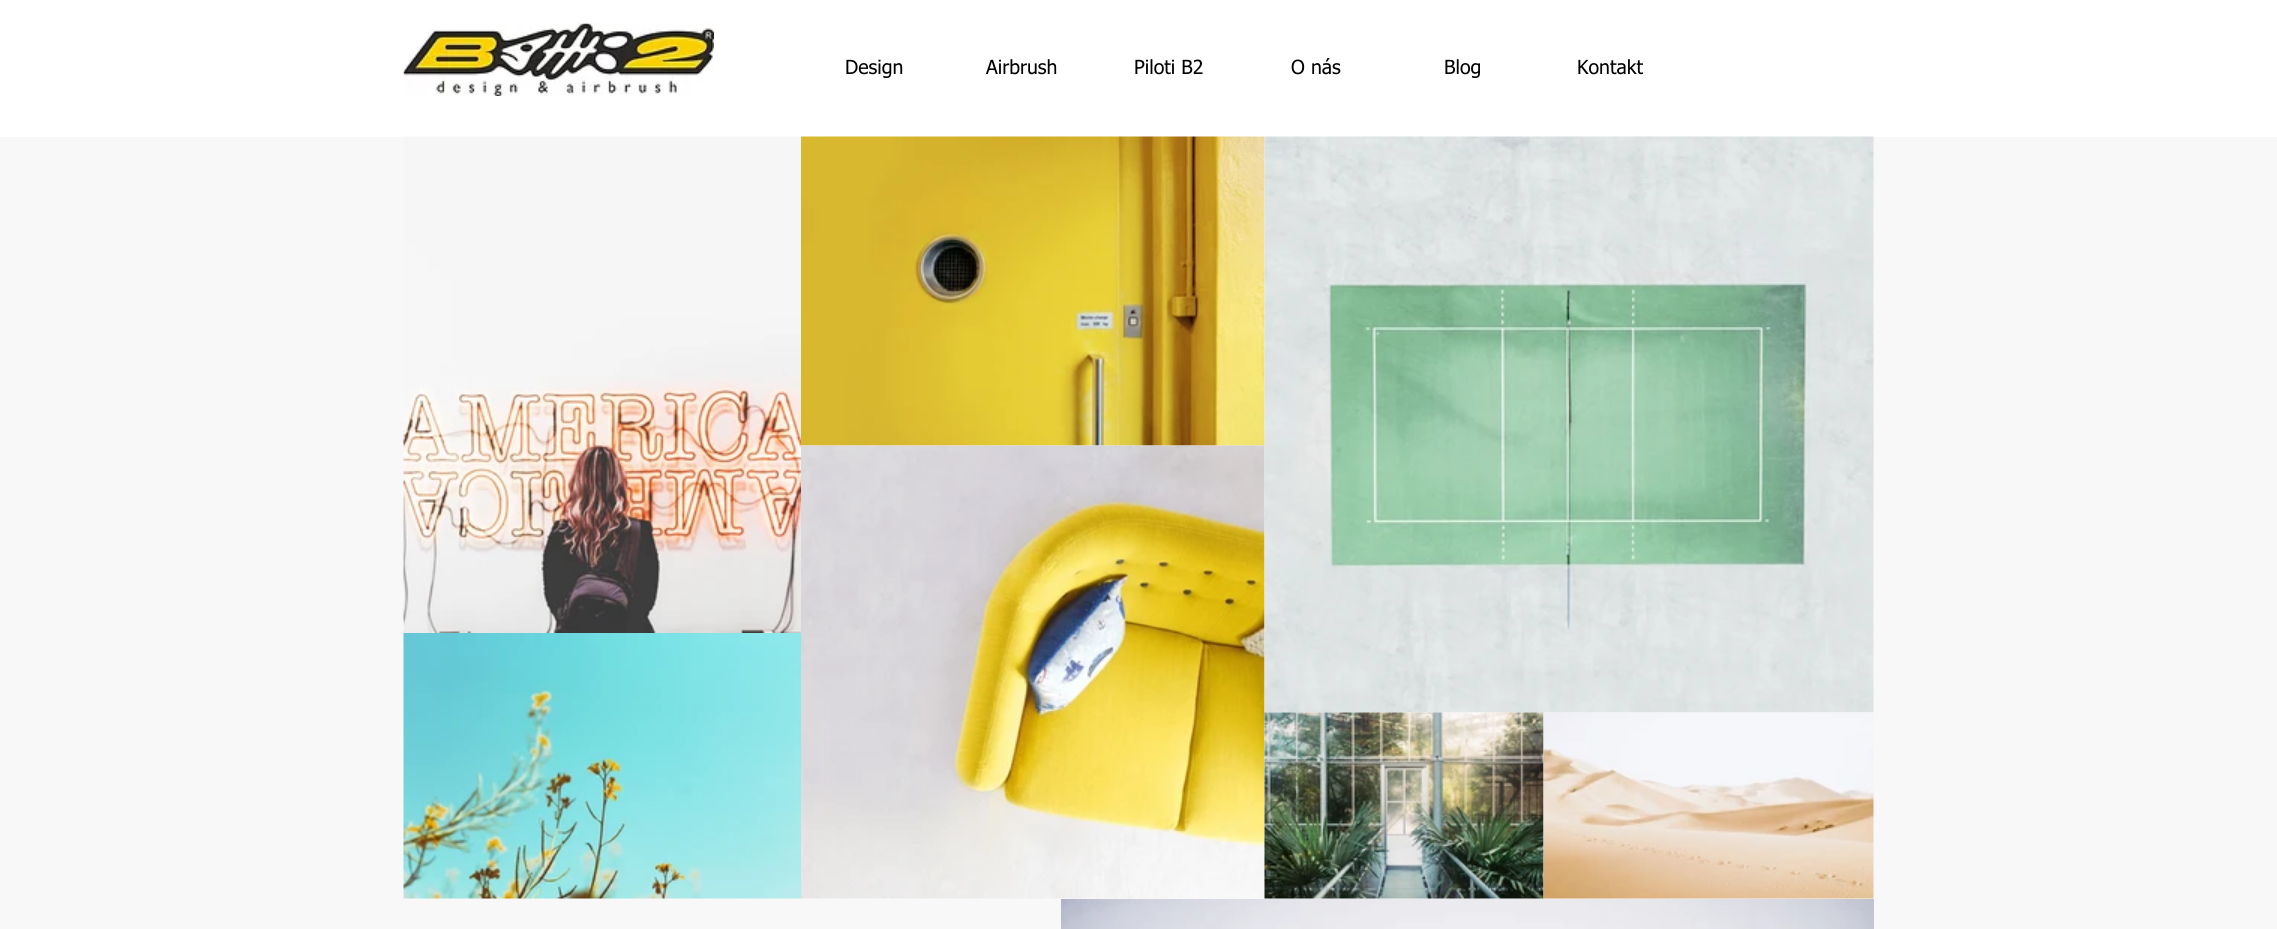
import math
import cairocffi as cairo

surface = cairo.ImageSurface(cairo.FORMAT_RGB24, 2277, 929)
ctx = cairo.Context(surface)
options = cairo.FontOptions()
options.set_hint_metrics(cairo.HINT_METRICS_OFF)
options.set_hint_style(cairo.HINT_STYLE_NONE)
ctx.set_font_options(options)
ctx.set_miter_limit(4)


def rgb(r, g, b):
    ctx.set_source_rgb(r / 255, g / 255, b / 255)


def face(family, size, italic, bold):
    ctx.select_font_face(family, cairo.FONT_SLANT_ITALIC if italic else cairo.FONT_SLANT_NORMAL, cairo.FONT_WEIGHT_BOLD if bold else cairo.FONT_WEIGHT_NORMAL)
    ctx.set_font_size(size)


def label(x, y, s):
    ctx.move_to(x, y)
    ctx.show_text(s)


def rect(x, y, w, h):
    ctx.rectangle(x, y, w, h)
    ctx.fill()


def image(path, x, y, w, h):
    ctx.save()
    ctx.set_source_surface(cairo.ImageSurface.create_from_png(path), x, y)
    ctx.rectangle(x, y, w, h)
    ctx.fill()
    ctx.restore()


rgb(248, 248, 248)
ctx.paint()
rgb(255, 255, 255)
rect(0, 0, 2277, 137)
image('image0.png', 403, 22, 311, 74)
face('tahoma', 19.5, 0, 0)
rgb(0, 0, 0)
label(845, 74, 'Design')
label(986, 74, 'Airbrush')
label(1134, 74, 'Piloti B2')
label(1291, 74, 'O nás')
label(1444, 74, 'Blog')
label(1577, 74, 'Kontakt')
image('image1.png', 403, 136, 398, 497)
image('image2.png', 801, 136, 464, 310)
image('image5.png', 801, 445, 464, 454)
image('image3.png', 1264, 136, 610, 577)
image('image4.png', 403, 633, 398, 266)
image('image6.png', 1264, 712, 280, 187)
image('image7.png', 1543, 712, 331, 187)
image('image8.png', 1061, 899, 813, 30)
surface.write_to_png('render.png')
